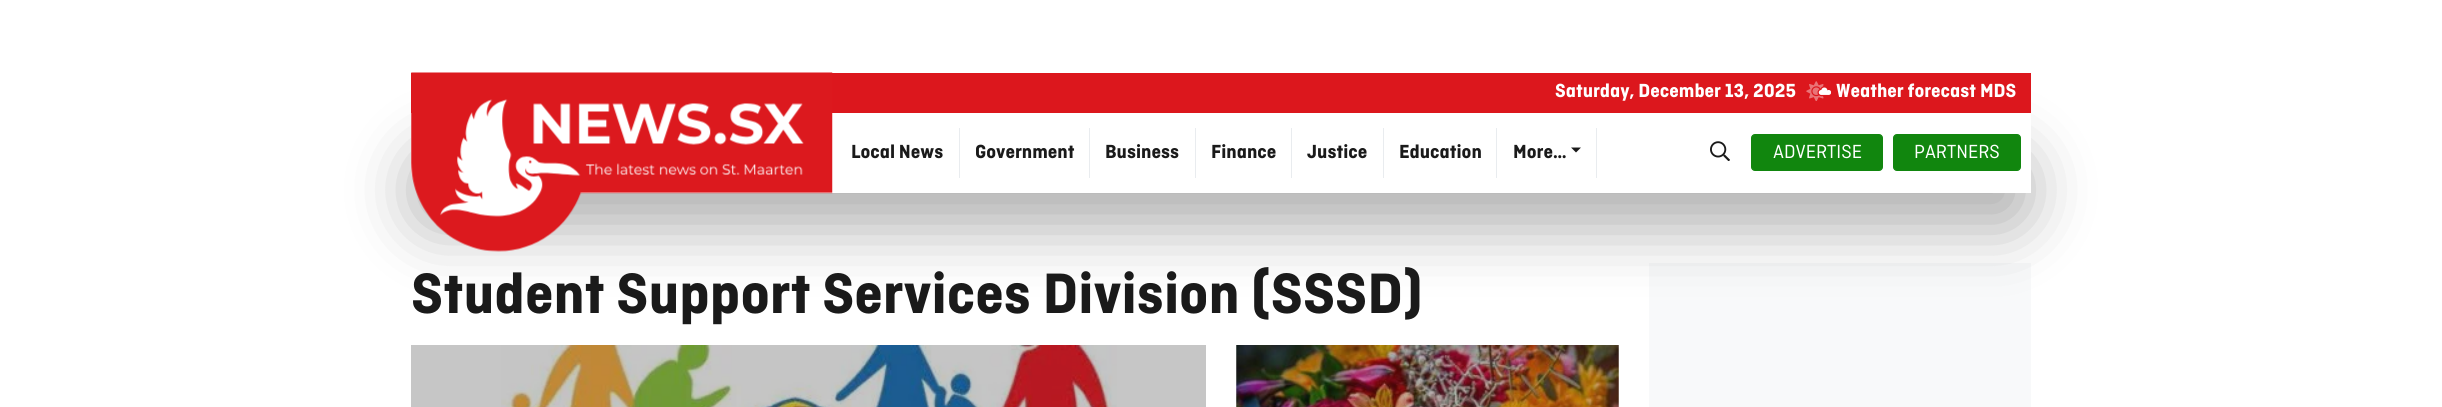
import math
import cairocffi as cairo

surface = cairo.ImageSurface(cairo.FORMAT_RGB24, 2442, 407)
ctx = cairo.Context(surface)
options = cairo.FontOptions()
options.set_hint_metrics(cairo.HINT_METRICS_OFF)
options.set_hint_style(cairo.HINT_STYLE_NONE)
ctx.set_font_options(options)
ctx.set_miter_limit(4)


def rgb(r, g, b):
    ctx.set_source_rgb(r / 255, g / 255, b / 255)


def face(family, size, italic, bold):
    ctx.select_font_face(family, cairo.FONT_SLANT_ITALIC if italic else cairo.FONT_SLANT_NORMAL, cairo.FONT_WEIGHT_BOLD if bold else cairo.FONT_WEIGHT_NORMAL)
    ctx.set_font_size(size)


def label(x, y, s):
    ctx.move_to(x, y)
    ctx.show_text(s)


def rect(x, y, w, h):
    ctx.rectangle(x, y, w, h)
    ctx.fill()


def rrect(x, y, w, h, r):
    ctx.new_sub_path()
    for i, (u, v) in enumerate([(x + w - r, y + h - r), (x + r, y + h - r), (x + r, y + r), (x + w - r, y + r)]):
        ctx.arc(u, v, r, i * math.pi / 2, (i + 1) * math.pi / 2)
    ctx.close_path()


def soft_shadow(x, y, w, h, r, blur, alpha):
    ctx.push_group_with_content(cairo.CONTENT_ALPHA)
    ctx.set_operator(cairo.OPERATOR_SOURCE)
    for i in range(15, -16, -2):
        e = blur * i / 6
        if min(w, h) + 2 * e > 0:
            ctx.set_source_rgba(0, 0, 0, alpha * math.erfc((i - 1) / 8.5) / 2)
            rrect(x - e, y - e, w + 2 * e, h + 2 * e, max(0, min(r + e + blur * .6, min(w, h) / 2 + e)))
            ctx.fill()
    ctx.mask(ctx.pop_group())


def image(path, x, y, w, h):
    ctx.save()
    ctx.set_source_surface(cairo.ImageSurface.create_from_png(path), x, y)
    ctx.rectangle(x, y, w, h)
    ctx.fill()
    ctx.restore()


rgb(255, 255, 255)
ctx.paint()
rgb(198, 198, 198)
rect(411, 345, 795, 62)
rgb(248, 249, 250)
rect(1649, 263, 382, 144)
rgb(0, 0, 0)
soft_shadow(411, 150, 1620, 80, 24, 31, 0.3)
rgb(220, 23, 29)
rect(411, 73, 1620, 40)
rgb(255, 255, 255)
ctx.new_path()
ctx.move_to(411, 113)
ctx.line_to(2031, 113)
ctx.line_to(2031, 193)
ctx.line_to(435, 193)
ctx.curve_to(421.5, 193, 411, 182.5, 411, 169)
ctx.close_path()
ctx.fill()
image('image0.png', 411, 72, 422, 180)
face('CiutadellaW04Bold', 20, 0, 1)
label(1555, 97, 'Saturday, December 13, 2025')
image('image1.png', 1806, 81, 25, 20)
label(1836, 97, 'Weather forecast MDS')
rgb(233, 236, 239)
rect(959, 128, 1, 50)
rgb(26, 26, 26)
label(851, 158, 'Local News')
rgb(233, 236, 239)
rect(1089, 128, 1, 50)
rgb(26, 26, 26)
label(975, 158, 'Government')
rgb(233, 236, 239)
rect(1195, 128, 1, 50)
rgb(26, 26, 26)
label(1105, 158, 'Business')
rgb(233, 236, 239)
rect(1291, 128, 1, 50)
rgb(26, 26, 26)
label(1211, 158, 'Finance')
rgb(233, 236, 239)
rect(1383, 128, 1, 50)
rgb(26, 26, 26)
label(1307, 158, 'Justice')
rgb(233, 236, 239)
rect(1496, 128, 1, 50)
rgb(26, 26, 26)
label(1399, 158, 'Education')
rgb(233, 236, 239)
rect(1596, 128, 1, 50)
rgb(26, 26, 26)
label(1513, 158, 'More…')
ctx.new_path()
ctx.move_to(1571, 147.5)
ctx.line_to(1581, 147.5)
ctx.line_to(1576, 152.5)
ctx.close_path()
ctx.fill()
image('image2.png', 1710, 141, 20, 20)
rgb(17, 134, 14)
rrect(1751.5, 134.5, 131, 36, 3.5)
ctx.fill_preserve()
ctx.set_line_width(1)
ctx.stroke()
face('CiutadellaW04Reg', 20, 0, 0)
rgb(255, 255, 255)
label(1773, 158, 'ADVERTISE')
rgb(17, 134, 14)
rrect(1893.5, 134.5, 127, 36, 3.5)
ctx.fill_preserve()
ctx.stroke()
rgb(255, 255, 255)
label(1914, 158, 'PARTNERS')
face('CiutadellaW04Bold', 60, 0, 1)
rgb(26, 26, 26)
label(411, 313, 'Student Support Services Division (SSSD)')
image('image3.png', 501, 345, 616, 62)
image('image4.png', 1236, 345, 383, 62)
surface.write_to_png('render.png')
